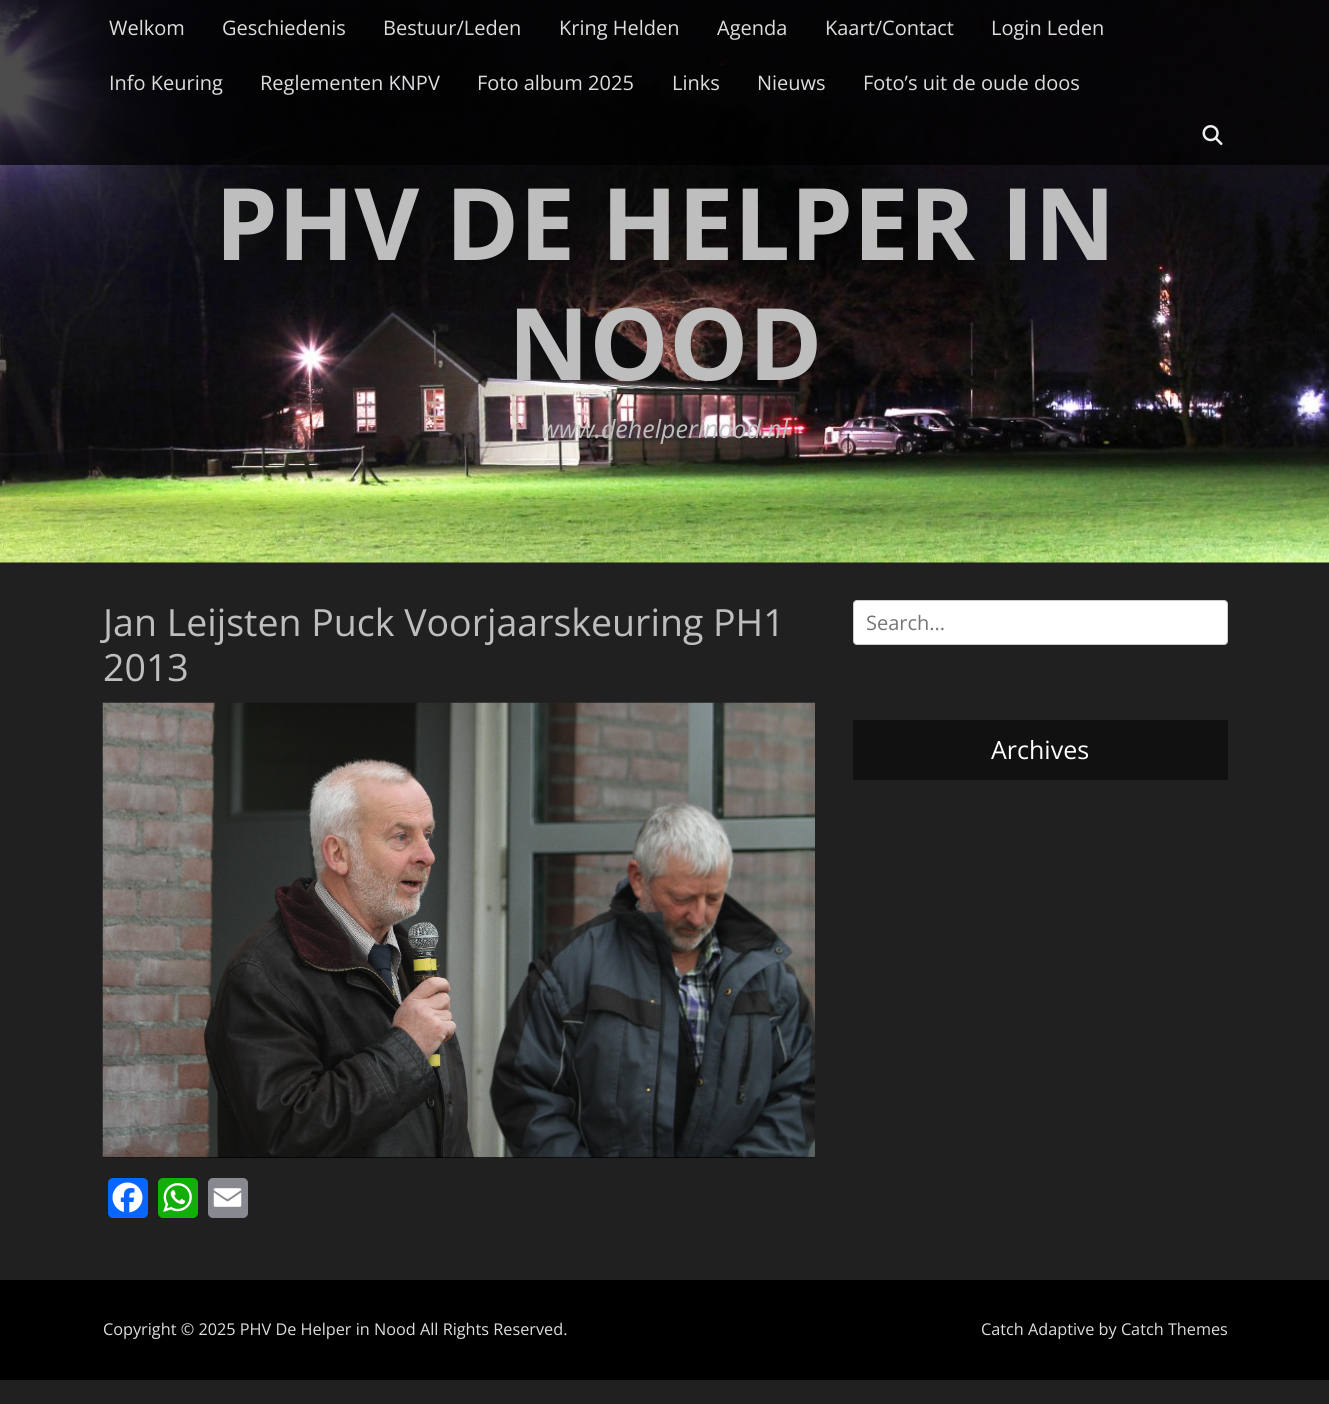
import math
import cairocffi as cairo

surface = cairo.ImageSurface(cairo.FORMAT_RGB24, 1329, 1404)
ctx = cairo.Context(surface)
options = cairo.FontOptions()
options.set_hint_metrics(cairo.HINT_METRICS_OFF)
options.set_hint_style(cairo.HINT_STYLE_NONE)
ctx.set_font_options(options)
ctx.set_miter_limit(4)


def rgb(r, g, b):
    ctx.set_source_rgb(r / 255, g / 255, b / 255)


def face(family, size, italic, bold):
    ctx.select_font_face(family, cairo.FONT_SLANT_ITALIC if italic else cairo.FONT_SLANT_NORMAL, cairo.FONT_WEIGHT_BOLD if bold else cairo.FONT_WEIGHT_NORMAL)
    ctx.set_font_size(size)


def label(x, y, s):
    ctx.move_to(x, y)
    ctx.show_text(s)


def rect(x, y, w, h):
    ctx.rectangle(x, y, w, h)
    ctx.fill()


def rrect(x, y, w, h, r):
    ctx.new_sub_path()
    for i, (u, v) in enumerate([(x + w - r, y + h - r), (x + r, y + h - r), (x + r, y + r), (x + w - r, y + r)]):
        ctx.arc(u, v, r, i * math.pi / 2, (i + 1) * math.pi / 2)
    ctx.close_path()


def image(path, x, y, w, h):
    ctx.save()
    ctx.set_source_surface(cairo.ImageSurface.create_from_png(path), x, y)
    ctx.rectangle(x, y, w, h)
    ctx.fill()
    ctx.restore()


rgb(32, 32, 32)
ctx.paint()
image('image1.png', 0, 0, 1329, 563)
ctx.set_source_rgba(0, 0, 0, 0.7)
rect(0, 0, 1329, 165)
face('Open Sans', 20, 0, 0)
rgb(221, 221, 221)
label(109, 35, 'Welkom')
label(222, 35, 'Geschiedenis')
label(383, 35, 'Bestuur/Leden')
label(559, 35, 'Kring Helden')
label(717, 35, 'Agenda')
label(825, 35, 'Kaart/Contact')
label(991, 35, 'Login Leden')
label(109, 90, 'Info Keuring')
label(260, 90, 'Reglementen KNPV')
label(477, 90, 'Foto album 2025')
label(672, 90, 'Links')
label(757, 90, 'Nieuws')
label(863, 90, 'Foto’s uit de oude doos')
image('image0.png', 1202, 125, 21, 20)
face('Open Sans', 100, 0, 1)
rgb(190, 190, 190)
label(215, 260, 'PHV DE HELPER IN')
label(508, 380, 'NOOD')
face('Open Sans', 25, 1, 0)
label(541, 438, 'www.dehelperinood.nl')
face('Open Sans', 37.5, 0, 0)
label(103, 636, 'Jan Leijsten Puck Voorjaarskeuring PH1')
label(103, 681, '2013')
rgb(0, 0, 0)
rect(103, 1157, 712, 1)
image('image2.png', 102, 702, 713, 456)
rgb(8, 102, 255)
rrect(108, 1178, 40, 40, 5)
ctx.fill()
image('image3.png', 112, 1182, 31, 31)
rgb(18, 175, 10)
rrect(158, 1178, 40, 40, 5)
ctx.fill()
image('image4.png', 163, 1183, 29, 29)
rgb(136, 137, 144)
rrect(208, 1178, 40, 40, 5)
ctx.fill()
image('image5.png', 213, 1188, 29, 19)
rgb(255, 255, 255)
rrect(853.5, 600.5, 374, 44, 3.5)
ctx.fill_preserve()
rgb(204, 204, 204)
ctx.set_line_width(1)
ctx.stroke()
face('Open Sans', 20, 0, 0)
rgb(117, 117, 117)
label(866, 630, 'Search...')
rgb(17, 17, 17)
rect(853, 720, 375, 60)
face('Open Sans', 25, 0, 0)
rgb(255, 255, 255)
label(991, 759, 'Archives')
rgb(0, 0, 0)
rect(0, 1280, 1329, 100)
face('Open Sans', 16.25, 0, 0)
rgb(221, 221, 221)
label(103, 1335, 'Copyright © 2025 PHV De Helper in Nood All Rights Reserved.')
label(981, 1335, 'Catch Adaptive by Catch Themes')
surface.write_to_png('render.png')
